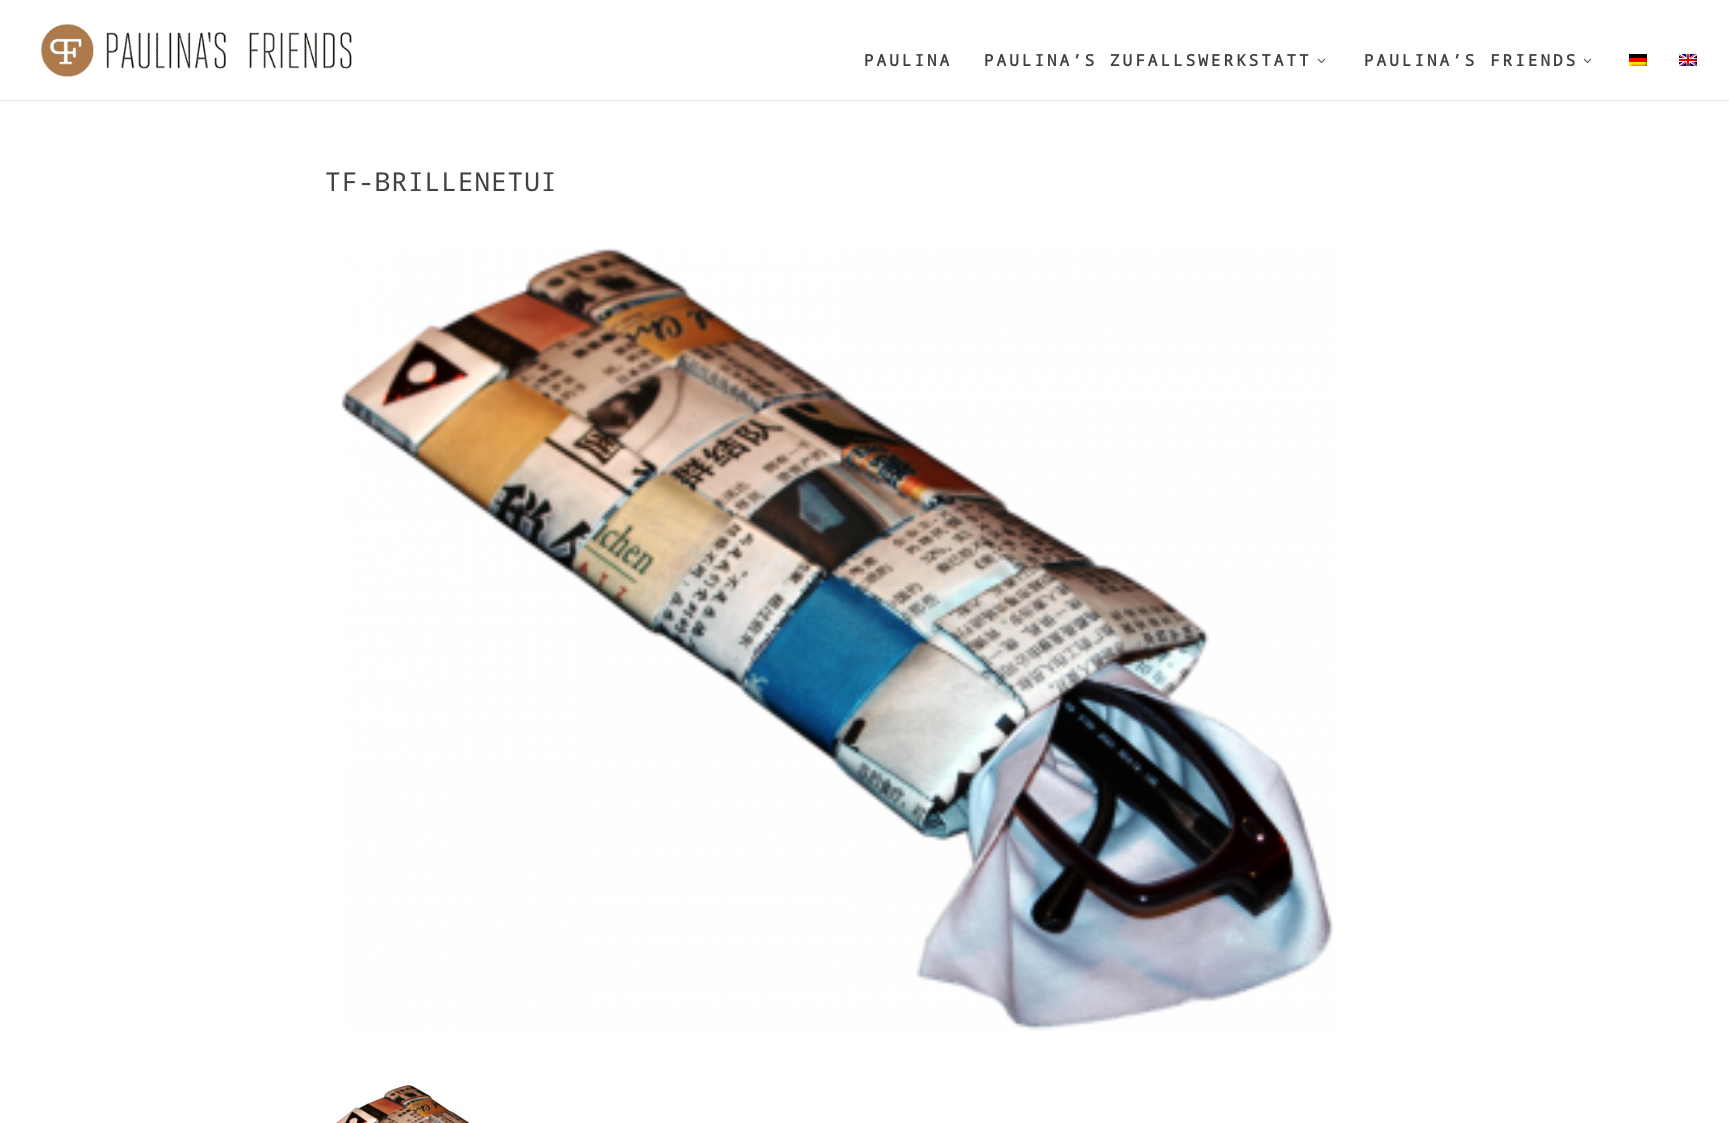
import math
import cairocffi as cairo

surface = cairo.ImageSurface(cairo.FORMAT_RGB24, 1729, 1123)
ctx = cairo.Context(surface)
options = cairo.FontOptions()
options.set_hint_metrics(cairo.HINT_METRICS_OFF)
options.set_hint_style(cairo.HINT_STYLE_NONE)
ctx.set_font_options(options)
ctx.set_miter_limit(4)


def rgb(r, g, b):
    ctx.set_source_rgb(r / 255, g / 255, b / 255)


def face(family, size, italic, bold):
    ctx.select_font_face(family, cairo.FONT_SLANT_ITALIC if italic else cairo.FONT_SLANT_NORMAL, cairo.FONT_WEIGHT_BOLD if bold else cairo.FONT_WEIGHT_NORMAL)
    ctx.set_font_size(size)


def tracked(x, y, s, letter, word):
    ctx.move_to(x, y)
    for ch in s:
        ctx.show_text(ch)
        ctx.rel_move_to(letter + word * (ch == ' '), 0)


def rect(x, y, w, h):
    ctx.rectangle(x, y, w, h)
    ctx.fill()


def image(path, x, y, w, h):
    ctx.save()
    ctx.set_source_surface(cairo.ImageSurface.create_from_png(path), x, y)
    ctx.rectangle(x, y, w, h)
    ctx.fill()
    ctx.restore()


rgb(255, 255, 255)
ctx.paint()
rgb(230, 230, 230)
rect(0, 100, 1729, 1)
image('image0.png', 40, 24, 312, 53)
face('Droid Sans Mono', 16, 0, 1)
rgb(67, 65, 62)
tracked(864, 66, 'PAULINA', 3, 0)
tracked(984, 66, 'PAULINA’S ZUFALLSWERKSTATT', 3, 0)
image('image1.png', 1317, 58, 9, 5)
tracked(1364, 66, 'PAULINA’S FRIENDS', 3, 0)
image('image1.png', 1583, 58, 9, 5)
image('image2.png', 1629, 54, 18, 12)
image('image3.png', 1679, 54, 18, 12)
face('Droid Sans Mono', 26, 0, 0)
tracked(325, 191, 'TF-BRILLENETUI', 1, 0)
image('image4.png', 341, 247, 993, 784)
image('image5.png', 336, 1085, 134, 38)
surface.write_to_png('render.png')
